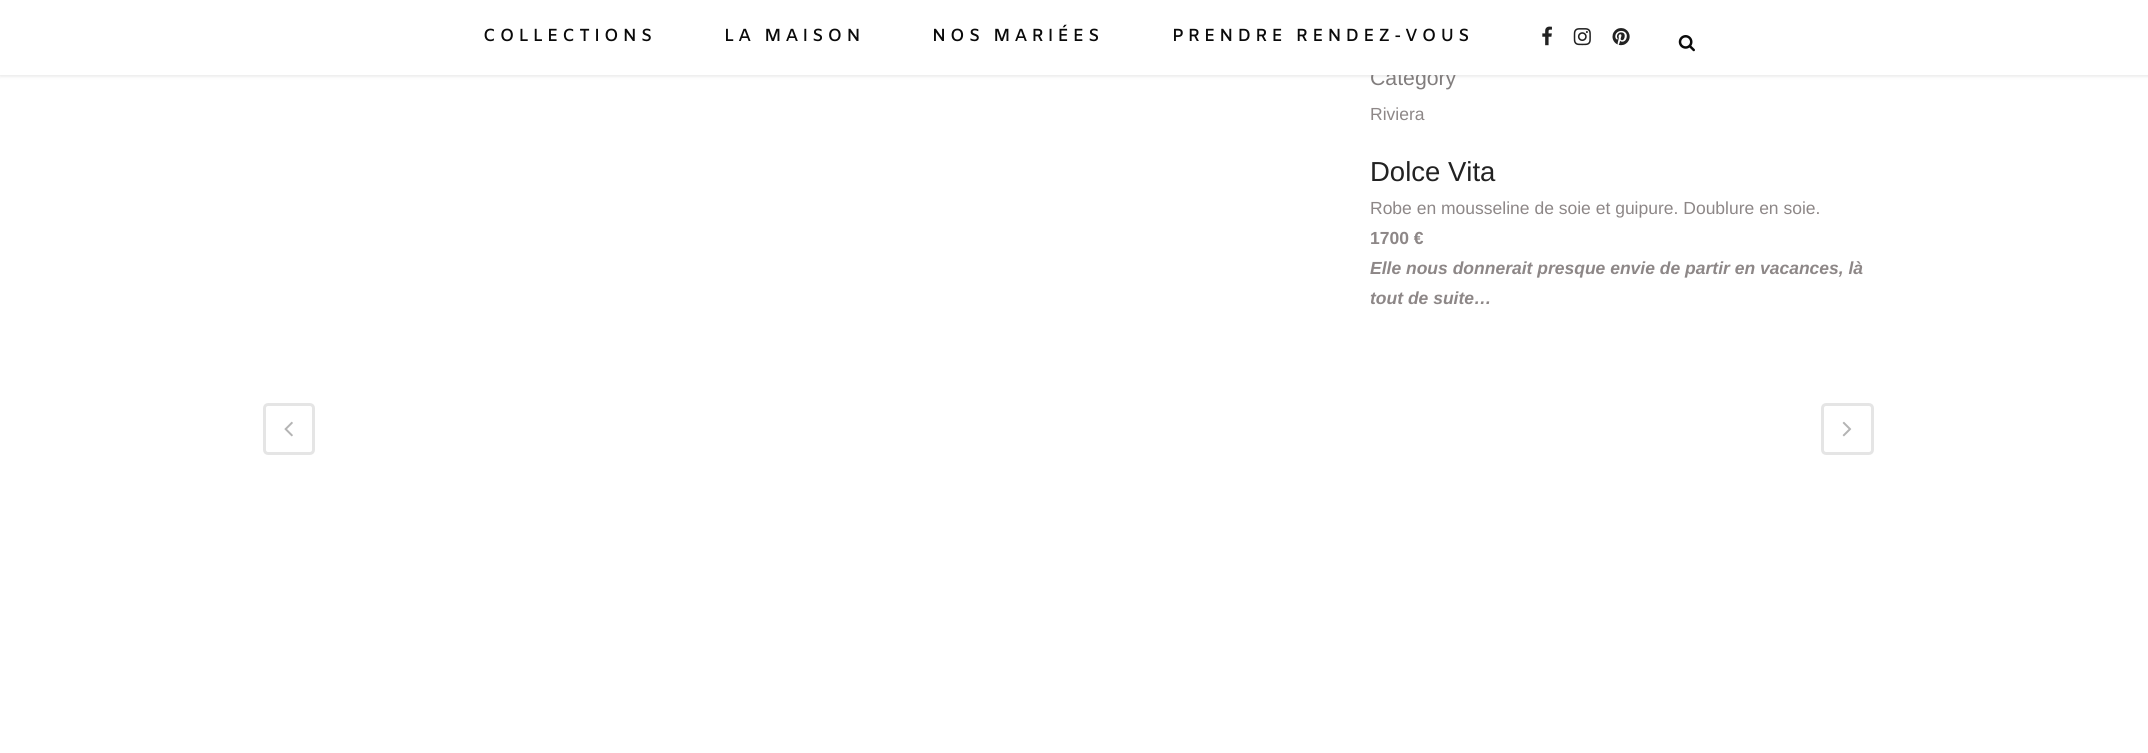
import math
import cairocffi as cairo

surface = cairo.ImageSurface(cairo.FORMAT_RGB24, 2148, 753)
ctx = cairo.Context(surface)
options = cairo.FontOptions()
options.set_hint_metrics(cairo.HINT_METRICS_OFF)
options.set_hint_style(cairo.HINT_STYLE_NONE)
ctx.set_font_options(options)
ctx.set_miter_limit(4)


def rgb(r, g, b):
    ctx.set_source_rgb(r / 255, g / 255, b / 255)


def face(family, size, italic, bold):
    ctx.select_font_face(family, cairo.FONT_SLANT_ITALIC if italic else cairo.FONT_SLANT_NORMAL, cairo.FONT_WEIGHT_BOLD if bold else cairo.FONT_WEIGHT_NORMAL)
    ctx.set_font_size(size)


def label(x, y, s):
    ctx.move_to(x, y)
    ctx.show_text(s)


def tracked(x, y, s, letter, word):
    ctx.move_to(x, y)
    for ch in s:
        ctx.show_text(ch)
        ctx.rel_move_to(letter + word * (ch == ' '), 0)


def rect(x, y, w, h):
    ctx.rectangle(x, y, w, h)
    ctx.fill()


def rrect(x, y, w, h, r):
    ctx.new_sub_path()
    for i, (u, v) in enumerate([(x + w - r, y + h - r), (x + r, y + h - r), (x + r, y + r), (x + w - r, y + r)]):
        ctx.arc(u, v, r, i * math.pi / 2, (i + 1) * math.pi / 2)
    ctx.close_path()


def soft_shadow(x, y, w, h, r, blur, alpha):
    ctx.push_group_with_content(cairo.CONTENT_ALPHA)
    ctx.set_operator(cairo.OPERATOR_SOURCE)
    for i in range(15, -16, -2):
        e = blur * i / 6
        if min(w, h) + 2 * e > 0:
            ctx.set_source_rgba(0, 0, 0, alpha * math.erfc((i - 1) / 8.5) / 2)
            rrect(x - e, y - e, w + 2 * e, h + 2 * e, max(0, min(r + e + blur * .6, min(w, h) / 2 + e)))
            ctx.fill()
    ctx.mask(ctx.pop_group())


def image(path, x, y, w, h):
    ctx.save()
    ctx.set_source_surface(cairo.ImageSurface.create_from_png(path), x, y)
    ctx.rectangle(x, y, w, h)
    ctx.fill()
    ctx.restore()


rgb(255, 255, 255)
ctx.paint()
rgb(0, 0, 0)
soft_shadow(0, 1, 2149, 75, 0, 2, 0.11)
face('Liberation Sans', 21.25, 0, 0)
rgb(129, 125, 125)
label(1370, 85, 'Category')
rgb(255, 255, 255)
rect(0, 0, 2148, 75)
face('Amiko SemiBold', 17.5, 0, 0)
rgb(10, 10, 10)
tracked(483, 41, 'COLLECTIONS', 4.1, 0)
tracked(724, 41, 'LA MAISON', 4.1, 0)
tracked(932, 41, 'NOS MARIÉES', 4.1, 0)
tracked(1172, 41, 'PRENDRE RENDEZ-VOUS', 4.1, 0)
image('image0.png', 1542, 26, 10, 20)
image('image1.png', 1573, 28, 18, 18)
image('image2.png', 1612, 28, 18, 18)
image('image3.png', 1678, 35, 17, 17)
face('Liberation Sans', 17.5, 0, 0)
rgb(141, 135, 135)
label(1370, 120, 'Riviera')
face('Liberation Sans', 27.5, 0, 0)
rgb(34, 34, 34)
label(1370, 181, 'Dolce Vita')
face('Liberation Sans', 17.5, 0, 0)
rgb(141, 135, 135)
label(1370, 214, 'Robe en mousseline de soie et guipure. Doublure en soie.')
face('Liberation Sans', 17.5, 0, 1)
label(1370, 244, '1700 €')
face('Liberation Sans', 17.5, 1, 1)
label(1370, 274, 'Elle nous donnerait presque envie de partir en vacances, là')
label(1370, 304, 'tout de suite…')
rrect(264.5, 404.5, 49, 49, 3.5)
rgb(229, 229, 229)
ctx.set_line_width(3)
ctx.stroke()
image('image4.png', 284, 421, 9, 16)
rrect(1822.5, 404.5, 50, 49, 3.5)
ctx.stroke()
image('image5.png', 1842, 421, 10, 16)
surface.write_to_png('render.png')
